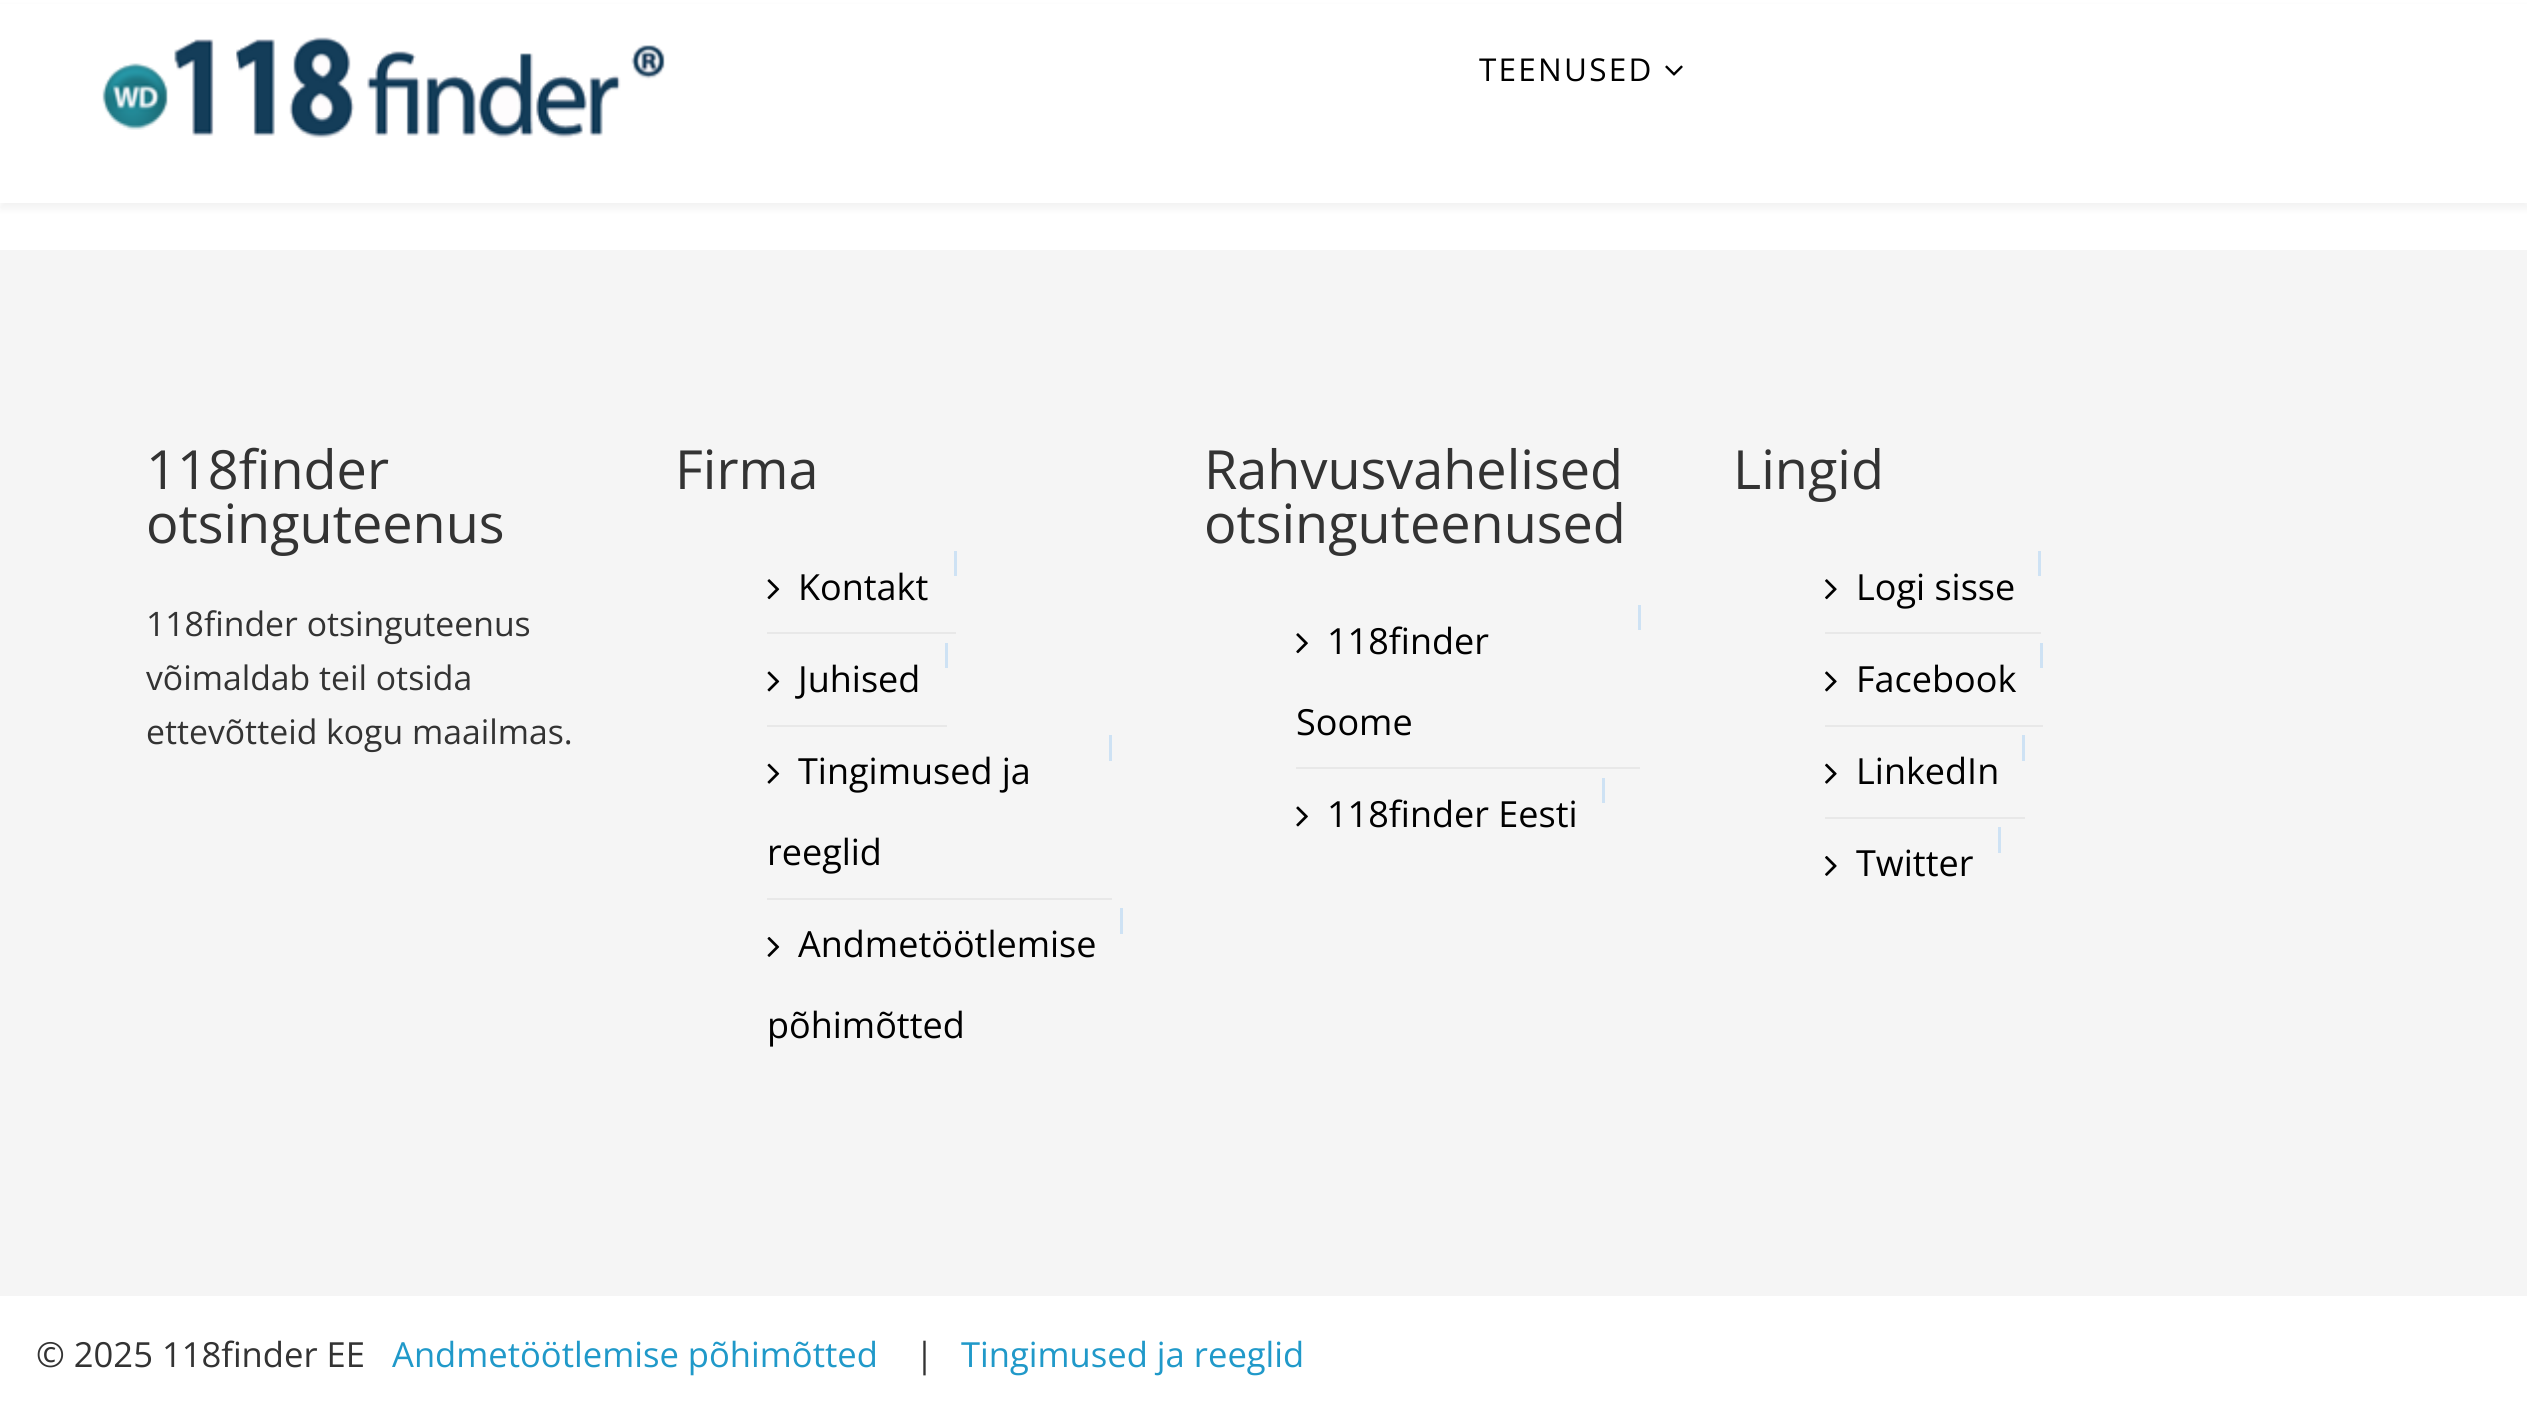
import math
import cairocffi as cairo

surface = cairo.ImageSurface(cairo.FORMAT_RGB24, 2527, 1410)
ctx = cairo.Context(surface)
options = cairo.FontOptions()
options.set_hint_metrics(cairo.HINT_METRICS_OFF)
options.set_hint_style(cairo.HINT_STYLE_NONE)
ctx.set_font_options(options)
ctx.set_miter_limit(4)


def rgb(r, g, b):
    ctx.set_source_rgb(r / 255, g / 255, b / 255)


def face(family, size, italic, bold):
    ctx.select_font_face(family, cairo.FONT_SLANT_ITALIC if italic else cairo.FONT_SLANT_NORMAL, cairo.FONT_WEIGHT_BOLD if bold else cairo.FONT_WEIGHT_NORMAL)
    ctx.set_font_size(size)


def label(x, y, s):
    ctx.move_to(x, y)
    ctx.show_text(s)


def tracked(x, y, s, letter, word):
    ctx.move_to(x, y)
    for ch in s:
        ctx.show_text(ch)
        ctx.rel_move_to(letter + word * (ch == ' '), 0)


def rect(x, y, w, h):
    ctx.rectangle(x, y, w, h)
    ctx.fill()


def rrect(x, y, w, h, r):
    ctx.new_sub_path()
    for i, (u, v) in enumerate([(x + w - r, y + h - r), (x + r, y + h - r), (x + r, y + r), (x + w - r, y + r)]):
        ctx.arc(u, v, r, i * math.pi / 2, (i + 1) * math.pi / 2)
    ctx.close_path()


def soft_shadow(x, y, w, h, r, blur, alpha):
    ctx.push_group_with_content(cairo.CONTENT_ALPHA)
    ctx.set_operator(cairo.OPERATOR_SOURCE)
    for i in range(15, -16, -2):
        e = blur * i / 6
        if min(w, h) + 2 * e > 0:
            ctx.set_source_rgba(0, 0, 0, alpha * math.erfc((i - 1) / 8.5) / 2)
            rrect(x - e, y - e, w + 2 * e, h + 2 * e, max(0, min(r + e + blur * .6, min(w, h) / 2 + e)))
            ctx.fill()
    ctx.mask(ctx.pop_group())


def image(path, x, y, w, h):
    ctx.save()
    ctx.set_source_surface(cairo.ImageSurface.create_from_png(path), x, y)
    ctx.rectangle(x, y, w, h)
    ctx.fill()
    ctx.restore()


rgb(255, 255, 255)
ctx.paint()
rgb(0, 0, 0)
soft_shadow(0, 7, 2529, 202, 0, 3.5, 0.05)
rgb(255, 255, 255)
rect(0, 4, 2527, 199)
image('image0.png', 102, 37, 563, 101)
face('Open Sans', 31.5, 0, 0)
rgb(0, 0, 0)
tracked(1479, 81, 'TEENUSED', 2.25, 0)
image('image1.png', 1665, 65, 18, 11)
rgb(245, 245, 245)
rect(0, 250, 2527, 1046)
face('Open Sans', 54, 0, 0)
rgb(51, 51, 51)
label(146, 489, '118finder')
label(146, 543, 'otsinguteenus')
face('Open Sans', 33.75, 0, 0)
label(146, 636, '118finder otsinguteenus')
label(146, 690, 'võimaldab teil otsida')
label(146, 744, 'ettevõtteid kogu maailmas.')
face('Open Sans', 54, 0, 0)
label(675, 489, 'Firma')
rgb(206, 226, 244)
rect(954, 551, 3, 25)
rgb(232, 232, 232)
rect(767, 632, 189, 2)
image('image2.png', 767, 579, 13, 21)
face('Open Sans', 36, 0, 0)
rgb(0, 0, 0)
label(798, 600, 'Kontakt')
rgb(206, 226, 244)
rect(945, 643, 3, 25)
rgb(232, 232, 232)
rect(767, 725, 180, 2)
image('image3.png', 767, 671, 13, 21)
rgb(0, 0, 0)
label(798, 692, 'Juhised')
rgb(206, 226, 244)
rect(1109, 735, 3, 26)
rgb(232, 232, 232)
rect(767, 898, 345, 2)
image('image4.png', 767, 763, 13, 21)
rgb(0, 0, 0)
label(798, 784, 'Tingimused ja')
label(767, 865, 'reeglid')
rgb(206, 226, 244)
rect(1120, 908, 3, 26)
image('image5.png', 767, 937, 13, 20)
rgb(0, 0, 0)
label(798, 957, 'Andmetöötlemise')
label(767, 1038, 'põhimõtted')
face('Open Sans', 54, 0, 0)
rgb(51, 51, 51)
label(1204, 489, 'Rahvusvahelised')
label(1204, 543, 'otsinguteenused')
rgb(206, 226, 244)
rect(1638, 605, 3, 25)
rgb(232, 232, 232)
rect(1296, 767, 344, 2)
image('image6.png', 1296, 633, 12, 21)
face('Open Sans', 36, 0, 0)
rgb(0, 0, 0)
label(1327, 654, '118finder')
label(1296, 735, 'Soome')
rgb(206, 226, 244)
rect(1602, 778, 3, 25)
image('image7.png', 1296, 806, 12, 21)
rgb(0, 0, 0)
label(1327, 827, '118finder Eesti')
face('Open Sans', 54, 0, 0)
rgb(51, 51, 51)
label(1733, 489, 'Lingid')
rgb(206, 226, 244)
rect(2038, 551, 3, 25)
rgb(232, 232, 232)
rect(1825, 632, 216, 2)
image('image8.png', 1825, 579, 12, 21)
face('Open Sans', 36, 0, 0)
rgb(0, 0, 0)
label(1856, 600, 'Logi sisse')
rgb(206, 226, 244)
rect(2040, 643, 3, 25)
rgb(232, 232, 232)
rect(1825, 725, 218, 2)
image('image9.png', 1825, 671, 12, 21)
rgb(0, 0, 0)
label(1856, 692, 'Facebook')
rgb(206, 226, 244)
rect(2022, 735, 3, 26)
rgb(232, 232, 232)
rect(1825, 817, 200, 2)
image('image10.png', 1825, 763, 12, 21)
rgb(0, 0, 0)
label(1856, 784, 'LinkedIn')
rgb(206, 226, 244)
rect(1998, 827, 3, 26)
image('image11.png', 1825, 856, 12, 20)
rgb(0, 0, 0)
label(1856, 876, 'Twitter')
face('Open Sans', 34.6, 0, 0)
rgb(51, 51, 51)
label(36, 1367, '© 2025 118finder EE')
rgb(32, 153, 201)
label(392, 1367, 'Andmetöötlemise põhimõtted')
rgb(51, 51, 51)
label(915, 1367, '|')
rgb(32, 153, 201)
label(961, 1367, 'Tingimused ja reeglid')
surface.write_to_png('render.png')
